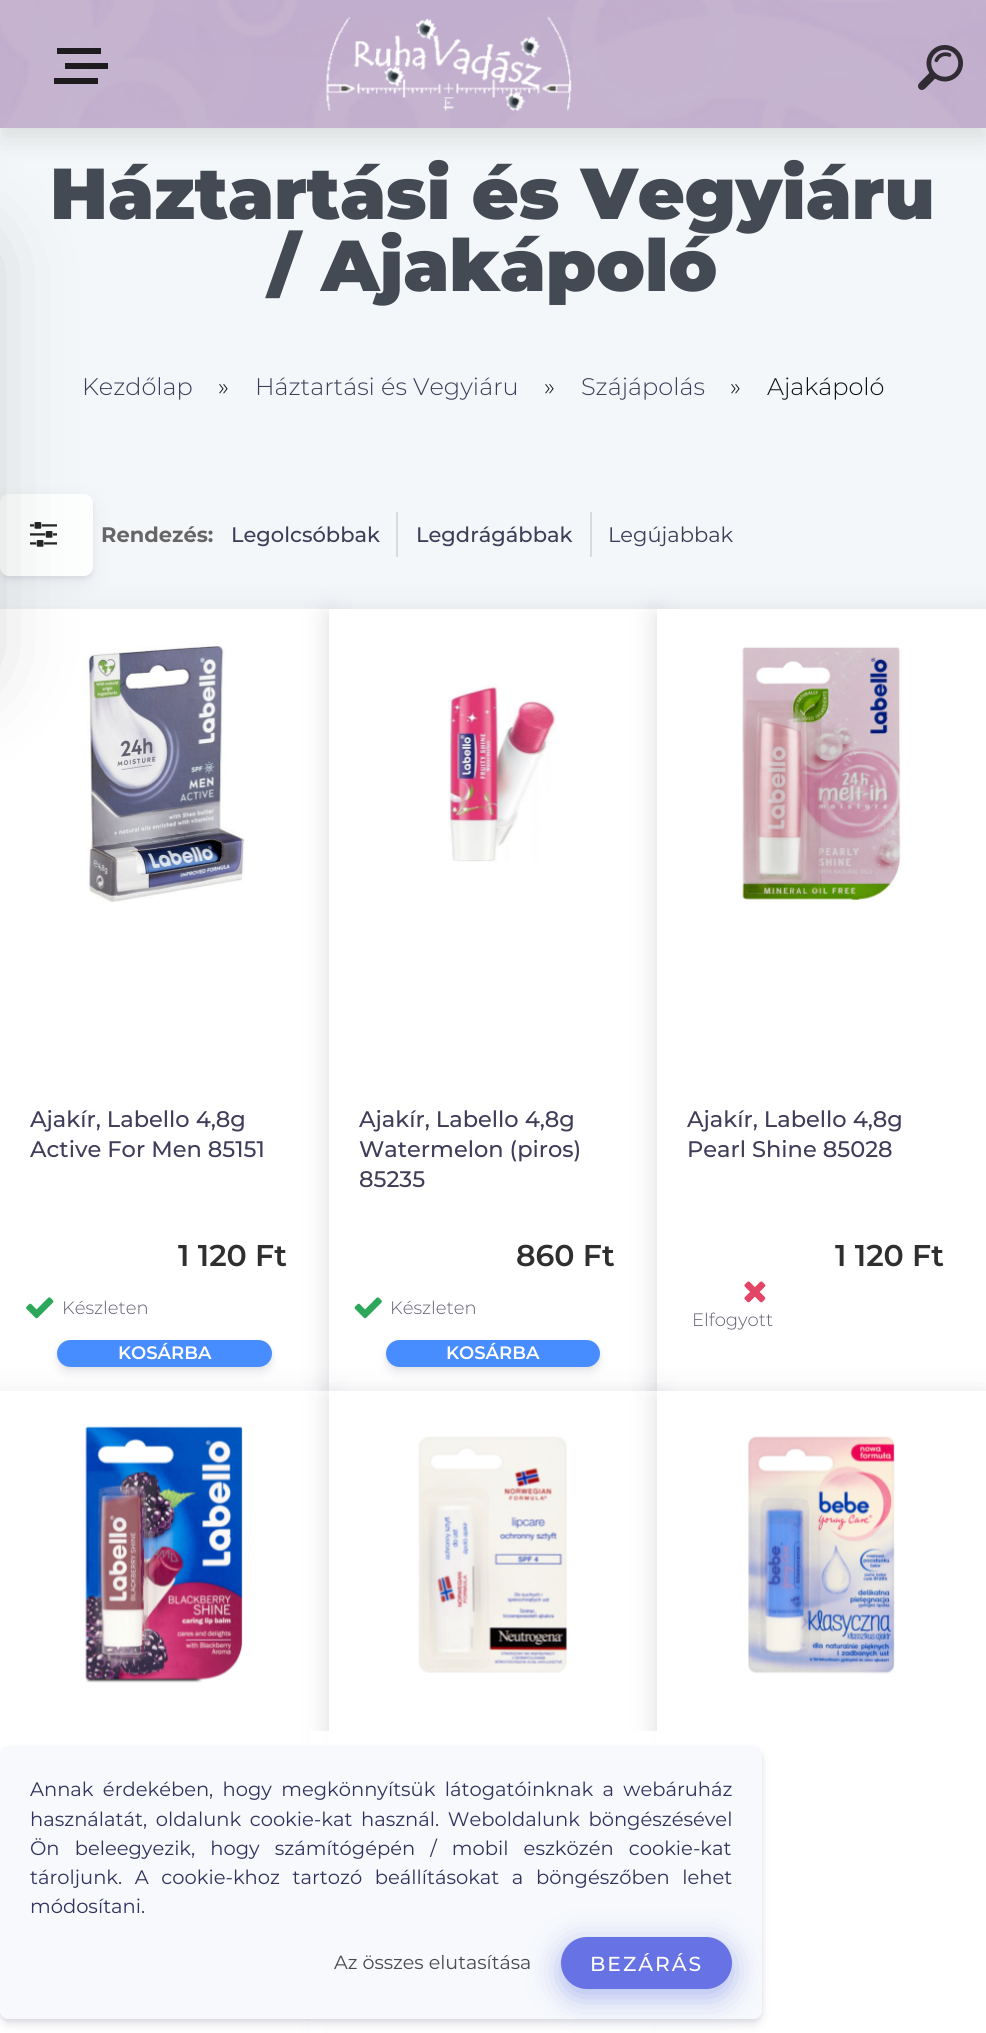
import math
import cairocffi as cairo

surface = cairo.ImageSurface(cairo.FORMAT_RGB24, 986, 2033)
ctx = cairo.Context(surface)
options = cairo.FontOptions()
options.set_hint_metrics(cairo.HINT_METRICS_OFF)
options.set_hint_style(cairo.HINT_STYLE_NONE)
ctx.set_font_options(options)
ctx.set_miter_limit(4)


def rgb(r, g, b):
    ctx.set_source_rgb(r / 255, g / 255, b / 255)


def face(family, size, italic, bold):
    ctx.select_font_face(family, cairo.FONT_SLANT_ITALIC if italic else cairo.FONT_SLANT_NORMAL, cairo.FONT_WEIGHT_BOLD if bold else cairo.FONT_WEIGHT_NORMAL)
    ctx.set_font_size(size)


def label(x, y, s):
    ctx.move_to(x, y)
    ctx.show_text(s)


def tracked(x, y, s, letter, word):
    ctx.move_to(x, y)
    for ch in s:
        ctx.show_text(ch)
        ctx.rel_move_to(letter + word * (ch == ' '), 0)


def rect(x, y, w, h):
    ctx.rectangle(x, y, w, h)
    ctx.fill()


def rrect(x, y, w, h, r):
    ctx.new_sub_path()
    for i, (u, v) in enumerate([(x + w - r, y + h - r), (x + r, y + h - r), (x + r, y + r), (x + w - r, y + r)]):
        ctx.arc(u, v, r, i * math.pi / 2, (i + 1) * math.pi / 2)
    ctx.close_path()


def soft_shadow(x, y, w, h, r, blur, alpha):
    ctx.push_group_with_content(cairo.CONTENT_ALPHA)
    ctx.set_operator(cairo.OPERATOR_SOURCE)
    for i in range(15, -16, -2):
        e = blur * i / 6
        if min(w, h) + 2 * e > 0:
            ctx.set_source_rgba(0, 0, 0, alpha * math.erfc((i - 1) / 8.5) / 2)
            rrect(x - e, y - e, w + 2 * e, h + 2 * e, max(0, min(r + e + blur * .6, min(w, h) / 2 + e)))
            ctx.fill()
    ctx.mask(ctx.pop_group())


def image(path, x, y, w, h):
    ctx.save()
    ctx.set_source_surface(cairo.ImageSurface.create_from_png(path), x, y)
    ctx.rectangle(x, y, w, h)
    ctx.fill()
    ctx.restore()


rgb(244, 247, 249)
ctx.paint()
rgb(0, 0, 0)
soft_shadow(0, 12, 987, 128, 0, 12, 0.1)
soft_shadow(0, 501, 93, 83, 9, 11, 0.06)
rgb(79, 80, 116)
soft_shadow(0, 497, 93, 82, 9, 2, 0.1)
rgb(253, 254, 254)
rrect(0, 494, 93, 82, 9)
ctx.fill()
image('image3.png', 30, 522, 27, 25)
rgb(50, 50, 93)
soft_shadow(0, 612, 329, 782, 0, 15, 0.1)
rgb(255, 255, 255)
rect(0, 609, 329, 782)
image('image4.png', 83, 643, 162, 260)
rgb(0, 0, 0)
soft_shadow(-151, 236, 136, 448, 20, 43.5, 0.18)
image('image0.png', 0, 0, 986, 128)
rgb(30, 27, 31)
rect(57, 48, 44, 6)
rect(65, 63, 43, 6)
rect(54, 78, 44, 6)
image('image1.png', 326, 16, 246, 95)
image('image2.png', 918, 45, 45, 45)
face('Montserrat Black', 72, 0, 0)
rgb(67, 74, 84)
label(50, 219, 'Háztartási és Vegyiáru')
label(268, 291, '/ Ajakápoló')
face('Montserrat Light', 24, 0, 0)
rgb(63, 61, 89)
label(82, 395, 'Kezdőlap')
rgb(16, 16, 16)
label(218, 395, '»')
rgb(63, 61, 89)
label(255, 395, 'Háztartási és Vegyiáru')
rgb(16, 16, 16)
label(544, 395, '»')
rgb(63, 61, 89)
label(581, 395, 'Szájápolás')
rgb(16, 16, 16)
label(730, 395, '»')
label(767, 395, 'Ajakápoló')
face('Montserrat', 21, 0, 1)
rgb(102, 102, 102)
label(101, 542, 'Rendezés:')
rgb(218, 218, 218)
rect(396, 512, 2, 45)
face('Montserrat Medium', 21, 0, 0)
rgb(63, 61, 89)
label(231, 542, 'Legolcsóbbak')
rgb(218, 218, 218)
rect(590, 512, 2, 45)
rgb(63, 61, 89)
label(416, 542, 'Legdrágábbak')
face('Montserrat', 21, 0, 0)
label(608, 542, 'Legújabbak')
face('Montserrat Medium', 22.5, 0, 0)
label(30, 1127, 'Ajakír, Labello 4,8g')
label(30, 1157, 'Active For Men 85151')
face('Montserrat SemiBold', 30, 0, 0)
rgb(47, 47, 47)
label(178, 1266, '1 120 Ft')
image('image5.png', 26, 1297, 28, 22)
face('Montserrat Light', 18, 0, 0)
rgb(96, 95, 115)
label(62, 1314, 'Készleten')
rgb(38, 38, 38)
soft_shadow(57, 1341, 215, 27, 13.5, 2, 0.08)
rgb(81, 81, 117)
soft_shadow(57, 1346, 215, 27, 13.5, 4.5, 0.11)
rgb(71, 141, 255)
rrect(57, 1340, 215, 27, 13.5)
ctx.fill()
face('Montserrat SemiBold', 18, 0, 0)
rgb(255, 255, 255)
label(118, 1359, 'KOSÁRBA')
rgb(0, 0, 0)
soft_shadow(329, 617, 328, 781, 0, 11, 0.07)
rgb(50, 50, 93)
soft_shadow(329, 612, 328, 782, 0, 15, 0.1)
rgb(255, 255, 255)
rect(329, 609, 328, 782)
image('image6.png', 448, 684, 109, 178)
face('Montserrat Medium', 22.5, 0, 0)
rgb(63, 61, 89)
label(359, 1127, 'Ajakír, Labello 4,8g')
label(359, 1157, 'Watermelon (piros)')
label(359, 1187, '85235')
face('Montserrat SemiBold', 30, 0, 0)
rgb(47, 47, 47)
label(516, 1266, '860 Ft')
image('image7.png', 354, 1297, 28, 22)
face('Montserrat Light', 18, 0, 0)
rgb(96, 95, 115)
label(390, 1314, 'Készleten')
rgb(38, 38, 38)
soft_shadow(386, 1341, 214, 27, 13.5, 2, 0.08)
rgb(81, 81, 117)
soft_shadow(386, 1346, 214, 27, 13.5, 4.5, 0.11)
rgb(71, 141, 255)
rrect(386, 1340, 214, 27, 13.5)
ctx.fill()
face('Montserrat SemiBold', 18, 0, 0)
rgb(255, 255, 255)
label(446, 1359, 'KOSÁRBA')
rgb(0, 0, 0)
soft_shadow(657, 617, 329, 781, 0, 11, 0.07)
rgb(50, 50, 93)
soft_shadow(657, 612, 329, 782, 0, 15, 0.1)
rgb(255, 255, 255)
rect(657, 609, 329, 782)
image('image8.png', 742, 647, 159, 253)
face('Montserrat Medium', 22.5, 0, 0)
rgb(63, 61, 89)
label(687, 1127, 'Ajakír, Labello 4,8g')
label(687, 1157, 'Pearl Shine 85028')
face('Montserrat SemiBold', 30, 0, 0)
rgb(47, 47, 47)
label(835, 1266, '1 120 Ft')
image('image9.png', 744, 1281, 22, 22)
face('Montserrat Light', 18, 0, 0)
rgb(96, 95, 115)
label(692, 1326, 'Elfogyott')
rgb(50, 50, 93)
soft_shadow(0, 1394, 329, 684, 0, 15, 0.1)
rgb(255, 255, 255)
rect(0, 1391, 329, 642)
image('image10.png', 85, 1426, 158, 257)
rgb(0, 0, 0)
soft_shadow(329, 1398, 328, 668, 0, 11, 0.07)
rgb(50, 50, 93)
soft_shadow(329, 1394, 328, 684, 0, 15, 0.1)
rgb(255, 255, 255)
rect(329, 1391, 328, 642)
image('image11.png', 418, 1436, 150, 237)
rgb(0, 0, 0)
soft_shadow(657, 1398, 329, 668, 0, 11, 0.07)
rgb(50, 50, 93)
soft_shadow(657, 1394, 329, 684, 0, 15, 0.1)
rgb(255, 255, 255)
rect(657, 1391, 329, 642)
image('image12.png', 748, 1436, 147, 238)
ctx.set_source_rgba(1, 1, 1, 0.95)
rect(310, 1731, 347, 302)
ctx.save()
ctx.set_fill_rule(cairo.FILL_RULE_EVEN_ODD)
ctx.new_path()
ctx.move_to(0, 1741)
ctx.line_to(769, 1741)
ctx.line_to(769, 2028)
ctx.line_to(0, 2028)
ctx.close_path()
ctx.move_to(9, 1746)
ctx.line_to(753, 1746)
ctx.curve_to(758, 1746, 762, 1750, 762, 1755)
ctx.line_to(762, 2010)
ctx.curve_to(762, 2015, 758, 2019, 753, 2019)
ctx.line_to(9, 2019)
ctx.curve_to(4, 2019, 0, 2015, 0, 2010)
ctx.line_to(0, 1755)
ctx.curve_to(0, 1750, 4, 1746, 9, 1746)
ctx.close_path()
ctx.clip()
rgb(0, 0, 0)
soft_shadow(0, 1748, 762, 273, 9, 2, 0.08)
ctx.restore()
ctx.save()
ctx.set_fill_rule(cairo.FILL_RULE_EVEN_ODD)
ctx.new_path()
ctx.move_to(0, 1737)
ctx.line_to(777, 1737)
ctx.line_to(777, 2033)
ctx.line_to(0, 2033)
ctx.close_path()
ctx.move_to(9, 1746)
ctx.line_to(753, 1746)
ctx.curve_to(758, 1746, 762, 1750, 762, 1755)
ctx.line_to(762, 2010)
ctx.curve_to(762, 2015, 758, 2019, 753, 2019)
ctx.line_to(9, 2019)
ctx.curve_to(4, 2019, 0, 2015, 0, 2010)
ctx.line_to(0, 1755)
ctx.curve_to(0, 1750, 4, 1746, 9, 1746)
ctx.close_path()
ctx.clip()
rgb(50, 50, 93)
soft_shadow(0, 1752, 762, 273, 9, 4.5, 0.11)
ctx.restore()
ctx.set_source_rgba(0.965, 0.976, 0.988, 0.9)
rrect(0, 1746, 762, 273, 9)
ctx.fill()
face('Montserrat', 19.5, 0, 0)
rgb(50, 50, 93)
tracked(30, 1796, 'Annak érdekében, hogy megkönnyítsük látogatóinknak a webáruház', 0, 4.25)
tracked(30, 1826, 'használatát, oldalunk cookie-kat használ. Weboldalunk böngészésével', 0, 3.5)
tracked(30, 1855, 'Ön beleegyezik, hogy számítógépén / mobil eszközén cookie-kat', 0, 10)
tracked(30, 1884, 'tároljunk. A cookie-khoz tartozó beállításokat a böngészőben lehet', 0, 7.5)
label(30, 1913, 'módosítani.')
rgb(58, 84, 214)
soft_shadow(561, 1944, 171, 53, 26.5, 15, 0.4)
face('Montserrat', 19.1, 0, 0)
rgb(74, 75, 76)
label(334, 1969, 'Az összes elutasítása')
rgb(103, 114, 229)
rrect(561, 1937, 171, 52, 26)
ctx.fill()
face('Montserrat Medium', 20.25, 0, 0)
rgb(255, 255, 255)
tracked(590, 1971, 'BEZÁRÁS', 2, 0)
surface.write_to_png('render.png')
